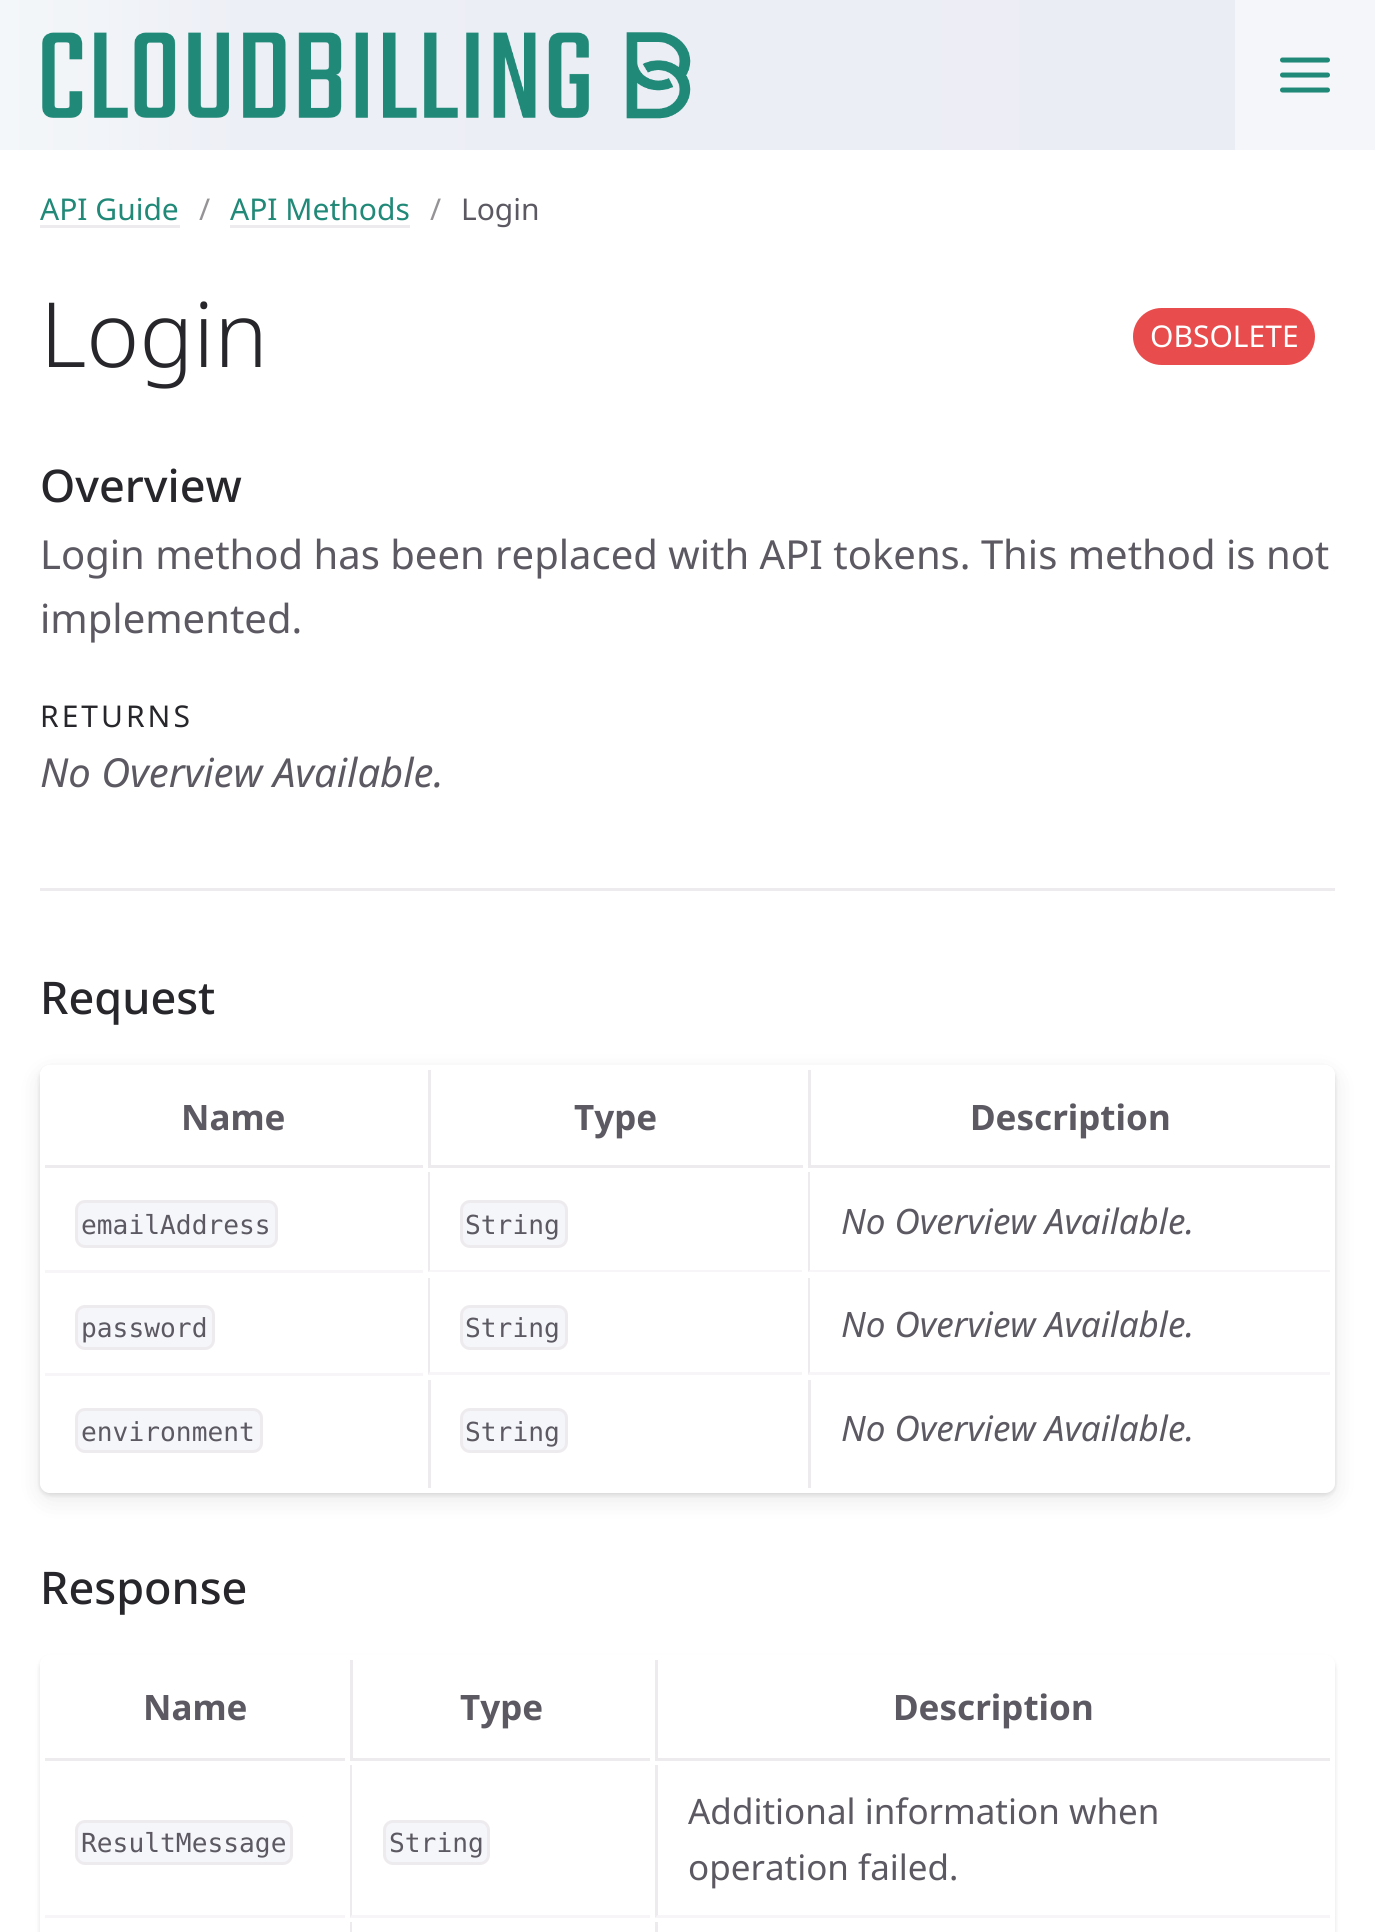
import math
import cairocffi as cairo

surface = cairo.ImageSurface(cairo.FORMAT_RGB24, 1375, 1932)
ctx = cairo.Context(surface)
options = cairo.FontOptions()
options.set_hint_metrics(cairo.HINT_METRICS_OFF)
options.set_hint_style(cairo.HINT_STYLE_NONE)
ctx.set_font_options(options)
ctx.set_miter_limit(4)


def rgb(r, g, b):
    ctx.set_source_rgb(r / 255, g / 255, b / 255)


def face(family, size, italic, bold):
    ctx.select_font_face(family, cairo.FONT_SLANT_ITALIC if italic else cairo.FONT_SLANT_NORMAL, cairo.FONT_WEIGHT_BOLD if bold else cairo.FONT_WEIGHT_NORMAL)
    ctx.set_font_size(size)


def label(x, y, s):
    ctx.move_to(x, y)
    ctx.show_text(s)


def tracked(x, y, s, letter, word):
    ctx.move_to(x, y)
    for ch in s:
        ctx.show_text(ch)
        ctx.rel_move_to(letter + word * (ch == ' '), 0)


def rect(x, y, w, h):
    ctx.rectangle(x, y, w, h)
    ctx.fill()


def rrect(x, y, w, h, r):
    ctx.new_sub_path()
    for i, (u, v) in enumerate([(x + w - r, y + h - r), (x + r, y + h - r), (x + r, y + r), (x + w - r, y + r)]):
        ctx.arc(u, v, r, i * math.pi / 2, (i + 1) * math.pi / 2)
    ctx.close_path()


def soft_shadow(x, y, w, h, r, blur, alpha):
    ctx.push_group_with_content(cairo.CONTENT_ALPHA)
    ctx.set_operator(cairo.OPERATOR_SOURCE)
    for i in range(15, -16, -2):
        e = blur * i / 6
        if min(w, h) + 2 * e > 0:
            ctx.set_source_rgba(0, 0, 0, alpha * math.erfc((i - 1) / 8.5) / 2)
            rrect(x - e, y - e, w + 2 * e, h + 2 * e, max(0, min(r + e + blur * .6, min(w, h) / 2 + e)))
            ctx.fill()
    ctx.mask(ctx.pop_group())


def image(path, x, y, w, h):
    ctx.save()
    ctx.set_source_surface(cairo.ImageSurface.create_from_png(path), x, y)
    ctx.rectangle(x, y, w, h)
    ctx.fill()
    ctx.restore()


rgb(255, 255, 255)
ctx.paint()
rgb(245, 246, 250)
rect(1235, 0, 140, 150)
gradient = cairo.LinearGradient(1235, 75, 0, 75)
gradient.add_color_stop_rgba(0, 0.922, 0.929, 0.961, 1)
gradient.add_color_stop_rgba(0.8, 0.929, 0.937, 0.965, 1)
gradient.add_color_stop_rgba(1, 0.957, 0.969, 0.976, 1)
ctx.set_source(gradient)
rect(0, 0, 1235, 150)
image('image0.png', 42, 32, 649, 87)
ctx.new_path()
ctx.move_to(1282.5, 75)
ctx.line_to(1327.5, 75)
ctx.move_to(1282.5, 60)
ctx.line_to(1327.5, 60)
ctx.move_to(1282.5, 90)
ctx.line_to(1327.5, 90)
rgb(33, 137, 120)
ctx.set_line_width(5)
ctx.set_line_cap(cairo.LINE_CAP_ROUND)
ctx.set_line_join(cairo.LINE_JOIN_ROUND)
ctx.stroke()
face('Noto Sans', 30, 0, 0)
label(40, 220, 'API Guide')
rgb(238, 235, 238)
rect(40, 225, 140, 3)
rgb(149, 147, 150)
label(199, 220, '/')
rgb(33, 137, 120)
label(230, 220, 'API Methods')
rgb(238, 235, 238)
rect(230, 225, 180, 3)
rgb(149, 147, 150)
label(430, 220, '/')
rgb(92, 89, 98)
label(461, 220, 'Login')
face('Noto Sans Light', 90, 0, 0)
rgb(39, 38, 43)
label(40, 367, 'Login')
rgb(233, 76, 76)
rrect(1133, 308, 182, 57, 28.5)
ctx.fill()
face('Noto Sans', 30, 0, 0)
rgb(255, 255, 255)
label(1150, 347, 'OBSOLETE')
face('Noto Sans Medium', 45, 0, 0)
rgb(39, 38, 43)
label(40, 502, 'Overview')
face('Noto Sans', 40, 0, 0)
rgb(92, 89, 98)
label(40, 569, 'Login method has been replaced with API tokens. This method is not')
label(40, 633, 'implemented.')
face('Noto Sans', 30, 0, 0)
rgb(39, 38, 43)
tracked(40, 727, 'RETURNS', 3, 0)
face('Noto Sans', 40, 1, 0)
rgb(92, 89, 98)
label(40, 787, 'No Overview Available.')
rgb(238, 235, 238)
rect(40, 888, 1295, 3)
face('Noto Sans Medium', 45, 0, 0)
rgb(39, 38, 43)
label(40, 1014, 'Request')
ctx.save()
ctx.set_fill_rule(cairo.FILL_RULE_EVEN_ODD)
ctx.new_path()
ctx.move_to(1, 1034)
ctx.line_to(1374, 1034)
ctx.line_to(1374, 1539)
ctx.line_to(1, 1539)
ctx.close_path()
ctx.move_to(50, 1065)
ctx.line_to(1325, 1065)
ctx.curve_to(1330.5, 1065, 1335, 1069.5, 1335, 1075)
ctx.line_to(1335, 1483)
ctx.curve_to(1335, 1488.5, 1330.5, 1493, 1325, 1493)
ctx.line_to(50, 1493)
ctx.curve_to(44.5, 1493, 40, 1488.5, 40, 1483)
ctx.line_to(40, 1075)
ctx.curve_to(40, 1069.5, 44.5, 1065, 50, 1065)
ctx.close_path()
ctx.clip()
rgb(0, 0, 0)
soft_shadow(40, 1073, 1295, 427, 10, 12.5, 0.08)
ctx.restore()
ctx.save()
ctx.set_fill_rule(cairo.FILL_RULE_EVEN_ODD)
ctx.new_path()
ctx.move_to(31, 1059)
ctx.line_to(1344, 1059)
ctx.line_to(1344, 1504)
ctx.line_to(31, 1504)
ctx.close_path()
ctx.move_to(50, 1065)
ctx.line_to(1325, 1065)
ctx.curve_to(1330.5, 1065, 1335, 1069.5, 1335, 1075)
ctx.line_to(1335, 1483)
ctx.curve_to(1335, 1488.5, 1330.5, 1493, 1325, 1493)
ctx.line_to(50, 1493)
ctx.curve_to(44.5, 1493, 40, 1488.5, 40, 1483)
ctx.line_to(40, 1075)
ctx.curve_to(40, 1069.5, 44.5, 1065, 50, 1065)
ctx.close_path()
ctx.clip()
rgb(0, 0, 0)
soft_shadow(40, 1068, 1295, 427, 10, 2.5, 0.12)
ctx.restore()
rgb(238, 235, 238)
rect(45, 1165, 378, 3)
face('Noto Sans', 35, 0, 1)
rgb(92, 89, 98)
label(181, 1130, 'Name')
rgb(238, 235, 238)
rect(428, 1165, 375, 3)
rect(428, 1070, 3, 98)
rgb(92, 89, 98)
label(574, 1130, 'Type')
rgb(238, 235, 238)
rect(808, 1165, 522, 3)
rect(808, 1070, 3, 98)
rgb(92, 89, 98)
label(970, 1130, 'Description')
rgb(247, 245, 247)
rect(45, 1270, 378, 3)
rgb(245, 246, 250)
rrect(76.5, 1201.5, 200, 45, 8.5)
ctx.fill_preserve()
rgb(238, 235, 238)
ctx.set_line_width(3)
ctx.set_line_cap(cairo.LINE_CAP_BUTT)
ctx.set_line_join(cairo.LINE_JOIN_MITER)
ctx.stroke()
face('DejaVu Sans Mono', 26.25, 0, 0)
rgb(92, 89, 98)
label(81, 1234, 'emailAddress')
rgb(247, 245, 247)
ctx.new_path()
ctx.move_to(802, 1272)
ctx.line_to(428, 1272)
ctx.line_to(430, 1270)
ctx.line_to(802, 1270)
ctx.close_path()
ctx.fill()
rgb(238, 235, 238)
ctx.new_path()
ctx.move_to(428, 1272)
ctx.line_to(428, 1172)
ctx.line_to(430, 1172)
ctx.line_to(430, 1270)
ctx.close_path()
ctx.fill()
rgb(245, 246, 250)
rrect(461.5, 1201.5, 105, 45, 8.5)
ctx.fill_preserve()
rgb(238, 235, 238)
ctx.stroke()
rgb(92, 89, 98)
label(465, 1234, 'String')
rgb(247, 245, 247)
ctx.new_path()
ctx.move_to(1330, 1272)
ctx.line_to(808, 1272)
ctx.line_to(810, 1270)
ctx.line_to(1330, 1270)
ctx.close_path()
ctx.fill()
rgb(238, 235, 238)
ctx.new_path()
ctx.move_to(808, 1272)
ctx.line_to(808, 1172)
ctx.line_to(810, 1172)
ctx.line_to(810, 1270)
ctx.close_path()
ctx.fill()
face('Noto Sans', 35, 1, 0)
rgb(92, 89, 98)
label(841, 1234, 'No Overview Available.')
rgb(247, 245, 247)
rect(45, 1373, 378, 3)
rgb(245, 246, 250)
rrect(76.5, 1306.5, 137, 42, 8.5)
ctx.fill_preserve()
rgb(238, 235, 238)
ctx.stroke()
face('DejaVu Sans Mono', 26.25, 0, 0)
rgb(92, 89, 98)
label(81, 1337, 'password')
rgb(247, 245, 247)
ctx.new_path()
ctx.move_to(802, 1375)
ctx.line_to(428, 1375)
ctx.line_to(430, 1372)
ctx.line_to(802, 1372)
ctx.close_path()
ctx.fill()
rgb(238, 235, 238)
ctx.new_path()
ctx.move_to(428, 1375)
ctx.line_to(428, 1278)
ctx.line_to(430, 1278)
ctx.line_to(430, 1372)
ctx.close_path()
ctx.fill()
rgb(245, 246, 250)
rrect(461.5, 1306.5, 105, 42, 8.5)
ctx.fill_preserve()
rgb(238, 235, 238)
ctx.stroke()
rgb(92, 89, 98)
label(465, 1337, 'String')
rgb(247, 245, 247)
ctx.new_path()
ctx.move_to(1330, 1375)
ctx.line_to(808, 1375)
ctx.line_to(810, 1372)
ctx.line_to(1330, 1372)
ctx.close_path()
ctx.fill()
rgb(238, 235, 238)
ctx.new_path()
ctx.move_to(808, 1375)
ctx.line_to(808, 1278)
ctx.line_to(810, 1278)
ctx.line_to(810, 1372)
ctx.close_path()
ctx.fill()
face('Noto Sans', 35, 1, 0)
rgb(92, 89, 98)
label(841, 1337, 'No Overview Available.')
rgb(245, 246, 250)
rrect(76.5, 1409.5, 185, 42, 8.5)
ctx.fill_preserve()
rgb(238, 235, 238)
ctx.stroke()
face('DejaVu Sans Mono', 26.25, 0, 0)
rgb(92, 89, 98)
label(81, 1441, 'environment')
rgb(238, 235, 238)
rect(428, 1380, 3, 108)
rgb(245, 246, 250)
rrect(461.5, 1409.5, 105, 42, 8.5)
ctx.fill_preserve()
rgb(238, 235, 238)
ctx.stroke()
rgb(92, 89, 98)
label(465, 1441, 'String')
rgb(238, 235, 238)
rect(808, 1380, 3, 108)
face('Noto Sans', 35, 1, 0)
rgb(92, 89, 98)
label(841, 1441, 'No Overview Available.')
face('Noto Sans Medium', 45, 0, 0)
rgb(39, 38, 43)
label(40, 1604, 'Response')
ctx.save()
ctx.set_fill_rule(cairo.FILL_RULE_EVEN_ODD)
ctx.new_path()
ctx.move_to(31, 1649)
ctx.line_to(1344, 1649)
ctx.line_to(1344, 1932)
ctx.line_to(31, 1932)
ctx.close_path()
ctx.move_to(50, 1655)
ctx.line_to(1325, 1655)
ctx.curve_to(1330.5, 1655, 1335, 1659.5, 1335, 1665)
ctx.line_to(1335, 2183)
ctx.curve_to(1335, 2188.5, 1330.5, 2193, 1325, 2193)
ctx.line_to(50, 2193)
ctx.curve_to(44.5, 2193, 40, 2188.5, 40, 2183)
ctx.line_to(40, 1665)
ctx.curve_to(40, 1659.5, 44.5, 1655, 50, 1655)
ctx.close_path()
ctx.clip()
rgb(0, 0, 0)
soft_shadow(40, 1658, 1295, 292, 10, 2.5, 0.12)
ctx.restore()
rgb(238, 235, 238)
rect(45, 1758, 300, 3)
face('Noto Sans', 35, 0, 1)
rgb(92, 89, 98)
label(143, 1720, 'Name')
rgb(238, 235, 238)
rect(350, 1758, 300, 3)
rect(350, 1660, 3, 100)
rgb(92, 89, 98)
label(460, 1720, 'Type')
rgb(238, 235, 238)
rect(655, 1758, 675, 3)
rect(655, 1660, 3, 100)
rgb(92, 89, 98)
label(893, 1720, 'Description')
rgb(247, 245, 247)
rect(45, 1915, 300, 3)
rgb(245, 246, 250)
rrect(76.5, 1821.5, 215, 42, 8.5)
ctx.fill_preserve()
rgb(238, 235, 238)
ctx.stroke()
face('DejaVu Sans Mono', 26.25, 0, 0)
rgb(92, 89, 98)
label(81, 1852, 'ResultMessage')
rgb(247, 245, 247)
ctx.new_path()
ctx.move_to(650, 1918)
ctx.line_to(350, 1918)
ctx.line_to(352, 1915)
ctx.line_to(650, 1915)
ctx.close_path()
ctx.fill()
rgb(238, 235, 238)
ctx.new_path()
ctx.move_to(350, 1918)
ctx.line_to(350, 1765)
ctx.line_to(352, 1765)
ctx.line_to(352, 1915)
ctx.close_path()
ctx.fill()
rgb(245, 246, 250)
rrect(384.5, 1821.5, 104, 42, 8.5)
ctx.fill_preserve()
rgb(238, 235, 238)
ctx.stroke()
rgb(92, 89, 98)
label(389, 1852, 'String')
rgb(247, 245, 247)
ctx.new_path()
ctx.move_to(1330, 1918)
ctx.line_to(655, 1918)
ctx.line_to(658, 1915)
ctx.line_to(1330, 1915)
ctx.close_path()
ctx.fill()
rgb(238, 235, 238)
ctx.new_path()
ctx.move_to(655, 1918)
ctx.line_to(655, 1765)
ctx.line_to(658, 1765)
ctx.line_to(658, 1915)
ctx.close_path()
ctx.fill()
face('Noto Sans', 35, 0, 0)
rgb(92, 89, 98)
label(688, 1824, 'Additional information when')
label(688, 1880, 'operation failed.')
rgb(238, 235, 238)
ctx.new_path()
ctx.move_to(350, 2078)
ctx.line_to(350, 1922)
ctx.line_to(352, 1922)
ctx.line_to(352, 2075)
ctx.close_path()
ctx.fill()
ctx.new_path()
ctx.move_to(655, 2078)
ctx.line_to(655, 1922)
ctx.line_to(658, 1922)
ctx.line_to(658, 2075)
ctx.close_path()
ctx.fill()
surface.write_to_png('render.png')
